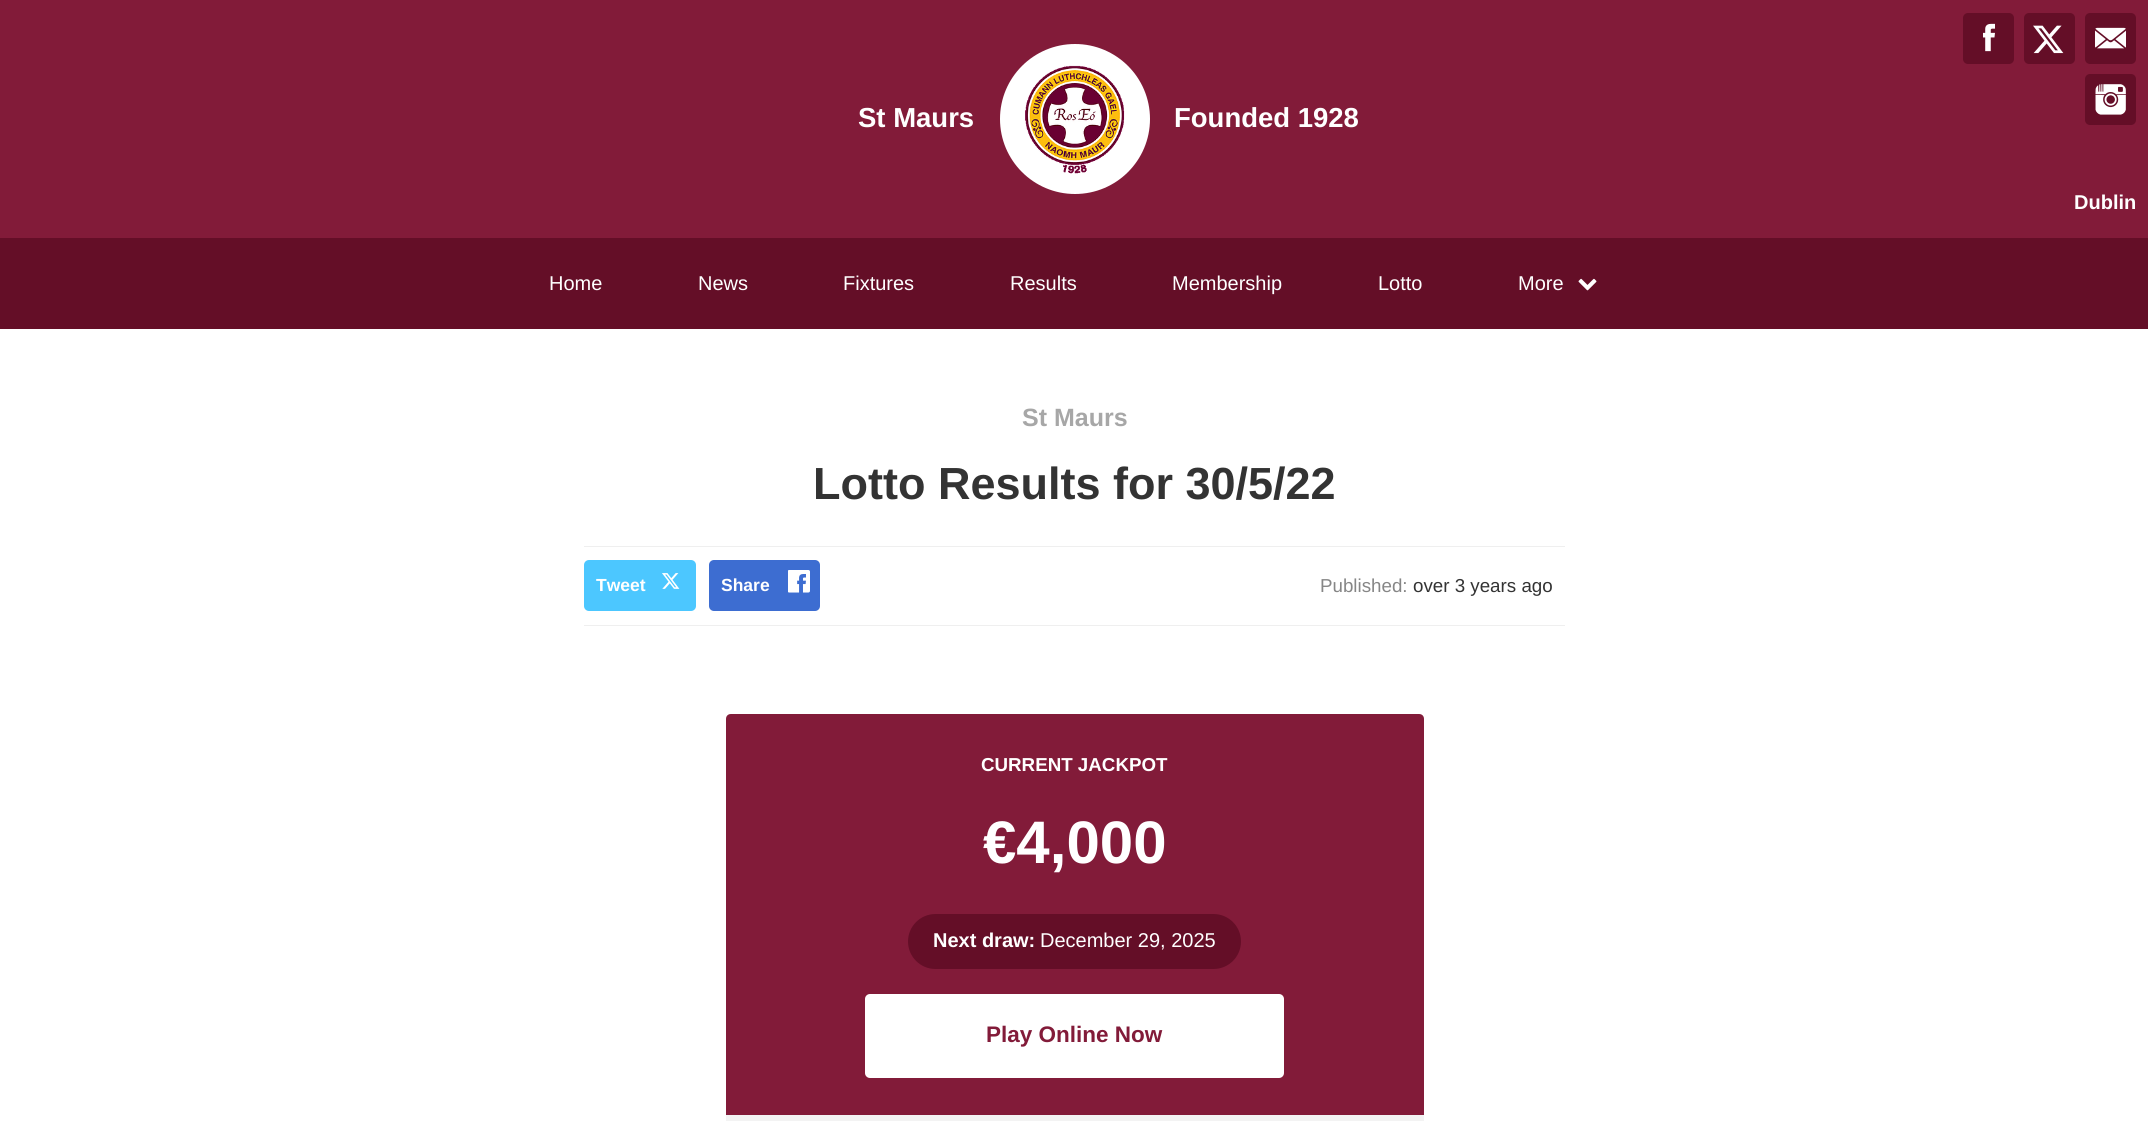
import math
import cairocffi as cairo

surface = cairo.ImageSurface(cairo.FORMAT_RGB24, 2148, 1121)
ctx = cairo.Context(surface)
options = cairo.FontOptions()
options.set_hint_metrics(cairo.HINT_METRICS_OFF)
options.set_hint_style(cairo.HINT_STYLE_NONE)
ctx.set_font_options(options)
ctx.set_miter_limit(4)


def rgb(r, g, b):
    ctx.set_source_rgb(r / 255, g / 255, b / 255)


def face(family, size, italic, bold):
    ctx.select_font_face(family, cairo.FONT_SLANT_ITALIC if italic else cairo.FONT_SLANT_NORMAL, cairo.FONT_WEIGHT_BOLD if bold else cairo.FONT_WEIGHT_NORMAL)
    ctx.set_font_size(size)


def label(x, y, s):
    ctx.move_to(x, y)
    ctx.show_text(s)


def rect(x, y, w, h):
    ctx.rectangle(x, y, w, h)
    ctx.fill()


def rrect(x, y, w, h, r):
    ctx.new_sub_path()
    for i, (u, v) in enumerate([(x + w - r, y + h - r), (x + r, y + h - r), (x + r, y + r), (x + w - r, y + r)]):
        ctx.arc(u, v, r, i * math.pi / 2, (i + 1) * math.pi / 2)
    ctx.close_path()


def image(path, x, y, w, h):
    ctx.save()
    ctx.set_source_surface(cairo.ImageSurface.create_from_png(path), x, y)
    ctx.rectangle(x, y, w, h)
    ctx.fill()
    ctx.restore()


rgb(255, 255, 255)
ctx.paint()
rgb(130, 27, 57)
rect(0, 0, 2148, 238)
face('Liberation Sans', 27.5, 0, 1)
rgb(255, 255, 255)
label(858, 127, 'St Maurs')
ctx.new_path()
ctx.arc(1075, 119, 75, 0, 2 * math.pi)
ctx.fill()
image('image0.png', 1025, 65, 100, 109)
label(1174, 127, 'Founded 1928')
rgb(100, 14, 39)
rrect(1963, 13, 51, 51, 5)
ctx.fill()
image('image1.png', 1983, 23, 12, 29)
rrect(2024, 13, 51, 51, 5)
ctx.fill()
image('image2.png', 2033, 25, 31, 29)
rrect(2085, 13, 51, 51, 5)
ctx.fill()
image('image3.png', 2095, 27, 31, 22)
rrect(2085, 74, 51, 51, 5)
ctx.fill()
image('image4.png', 2095, 84, 31, 31)
face('Liberation Sans', 20, 0, 1)
rgb(255, 255, 255)
label(2074, 209, 'Dublin')
rgb(100, 14, 39)
rect(0, 238, 2148, 91)
face('Liberation Sans', 20, 0, 0)
rgb(255, 255, 255)
label(549, 290, 'Home')
label(698, 290, 'News')
label(843, 290, 'Fixtures')
label(1010, 290, 'Results')
label(1172, 290, 'Membership')
label(1378, 290, 'Lotto')
label(1518, 290, 'More')
image('image5.png', 1578, 278, 19, 13)
face('Liberation Sans', 25, 0, 1)
rgb(167, 167, 167)
label(1022, 426, 'St Maurs')
face('Liberation Sans', 45, 0, 1)
rgb(51, 51, 51)
label(813, 499, 'Lotto Results for 30/5/22')
rgb(239, 239, 239)
rect(584, 546, 981, 1)
rect(584, 625, 981, 1)
rgb(76, 199, 255)
rrect(584, 560, 112, 51, 5)
ctx.fill()
image('image6.png', 662, 573, 18, 16)
face('Liberation Sans', 17.5, 0, 1)
rgb(255, 255, 255)
label(596, 591, 'Tweet')
rgb(61, 109, 209)
rrect(709, 560, 111, 51, 5)
ctx.fill()
image('image7.png', 788, 570, 22, 23)
rgb(255, 255, 255)
label(721, 591, 'Share')
face('Liberation Sans', 18.75, 0, 0)
rgb(134, 134, 134)
label(1320, 592, 'Published:')
rgb(51, 51, 51)
label(1413, 592, 'over 3 years ago')
rgb(243, 243, 243)
rrect(726, 714, 698, 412, 5)
ctx.fill()
rgb(130, 27, 57)
ctx.new_path()
ctx.move_to(731, 714)
ctx.line_to(1419, 714)
ctx.curve_to(1422, 714, 1424, 716, 1424, 719)
ctx.line_to(1424, 1115)
ctx.line_to(726, 1115)
ctx.line_to(726, 719)
ctx.curve_to(726, 716, 728, 714, 731, 714)
ctx.close_path()
ctx.fill()
face('Liberation Sans', 18.75, 0, 1)
rgb(255, 255, 255)
label(981, 771, 'CURRENT JACKPOT')
face('Liberation Sans', 60, 0, 1)
label(983, 863, '€4,000')
rgb(100, 14, 39)
rrect(908, 914, 333, 55, 27.5)
ctx.fill()
face('Liberation Sans', 20, 0, 1)
rgb(255, 255, 255)
label(933, 947, 'Next draw:')
face('Liberation Sans', 20, 0, 0)
label(1040, 947, 'December 29, 2025')
rrect(865, 994, 419, 84, 5)
ctx.fill()
face('Liberation Sans', 22.5, 0, 1)
rgb(130, 27, 57)
label(986, 1042, 'Play Online Now')
surface.write_to_png('render.png')
